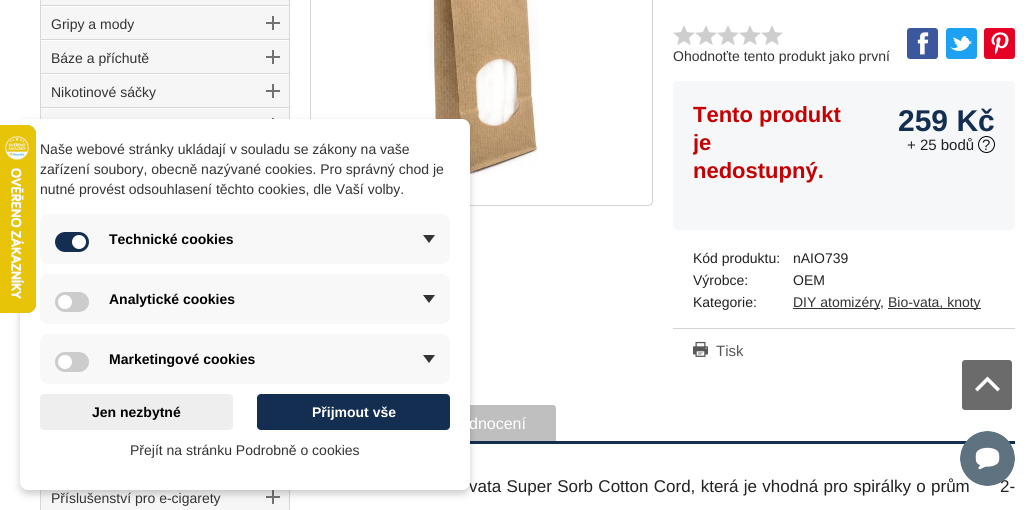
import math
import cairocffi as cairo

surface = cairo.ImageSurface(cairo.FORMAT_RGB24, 1035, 510)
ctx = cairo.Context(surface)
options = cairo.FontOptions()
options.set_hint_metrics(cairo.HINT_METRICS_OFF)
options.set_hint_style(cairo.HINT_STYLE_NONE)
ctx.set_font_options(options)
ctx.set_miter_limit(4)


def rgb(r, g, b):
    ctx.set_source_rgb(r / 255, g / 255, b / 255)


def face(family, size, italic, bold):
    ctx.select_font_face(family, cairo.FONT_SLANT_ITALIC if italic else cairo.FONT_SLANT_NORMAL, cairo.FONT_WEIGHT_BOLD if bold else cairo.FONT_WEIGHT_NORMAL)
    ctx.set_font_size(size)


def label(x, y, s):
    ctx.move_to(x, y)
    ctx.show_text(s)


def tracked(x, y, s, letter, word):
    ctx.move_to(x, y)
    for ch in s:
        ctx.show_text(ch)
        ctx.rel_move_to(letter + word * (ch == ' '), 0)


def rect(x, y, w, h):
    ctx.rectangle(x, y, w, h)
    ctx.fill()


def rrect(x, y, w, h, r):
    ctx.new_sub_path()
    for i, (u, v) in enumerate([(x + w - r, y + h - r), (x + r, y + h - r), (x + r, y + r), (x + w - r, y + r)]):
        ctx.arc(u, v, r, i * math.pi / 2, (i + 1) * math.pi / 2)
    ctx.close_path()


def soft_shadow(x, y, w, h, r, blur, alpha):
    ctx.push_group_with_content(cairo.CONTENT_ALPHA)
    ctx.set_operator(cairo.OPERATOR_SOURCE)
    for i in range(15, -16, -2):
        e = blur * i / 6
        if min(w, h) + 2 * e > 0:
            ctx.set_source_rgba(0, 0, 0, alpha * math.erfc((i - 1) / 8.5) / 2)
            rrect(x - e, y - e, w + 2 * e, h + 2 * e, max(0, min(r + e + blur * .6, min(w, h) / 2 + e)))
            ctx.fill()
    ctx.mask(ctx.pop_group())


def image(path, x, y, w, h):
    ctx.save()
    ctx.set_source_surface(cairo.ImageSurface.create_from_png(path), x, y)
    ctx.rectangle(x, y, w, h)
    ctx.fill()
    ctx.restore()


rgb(255, 255, 255)
ctx.paint()
ctx.rectangle(40.5, -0.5, 249, 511)
rgb(216, 215, 215)
ctx.set_line_width(1)
ctx.stroke()
rgb(246, 246, 246)
rect(41, 109, 248, 10)
rgb(114, 114, 114)
rect(272, 118, 2, 1)
rgb(246, 246, 246)
rect(41, 490, 248, 20)
rgb(114, 114, 114)
rect(266, 496, 14, 2)
rect(272, 490, 2, 14)
rrect(310.5, -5.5, 342, 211, 4.5)
rgb(213, 211, 211)
ctx.stroke()
image('image1.png', 424, 0, 115, 176)
rgb(20, 46, 81)
rect(470, 441, 545, 3)
rgb(191, 191, 191)
ctx.new_path()
ctx.move_to(422, 405)
ctx.line_to(553, 405)
ctx.curve_to(554.5, 405, 556, 406.5, 556, 408)
ctx.line_to(556, 441)
ctx.line_to(419, 441)
ctx.line_to(419, 408)
ctx.curve_to(419, 406.5, 420.5, 405, 422, 405)
ctx.close_path()
ctx.fill()
rgb(0, 0, 0)
soft_shadow(20, 123, 450, 371, 8, 4, 0.2)
face('Liberation Sans', 17, 0, 0)
rgb(34, 34, 34)
tracked(469, 492, 'vata Super Sorb Cotton Cord, která je vhodná pro spirálky o prům', 0, 0.6)
rgb(255, 255, 255)
rrect(20, 119, 450, 371, 8)
ctx.fill()
image('image0.png', 0, 125, 36, 188)
rgb(246, 246, 246)
rect(41, 0, 248, 5)
rgb(216, 215, 215)
rect(41, 5, 248, 1)
rgb(246, 246, 246)
rect(41, 7, 248, 32)
rgb(216, 215, 215)
rect(41, 39, 248, 1)
face('Liberation Sans', 14, 0, 0)
rgb(51, 51, 51)
label(51, 29, 'Gripy a mody')
rgb(114, 114, 114)
rect(266, 22, 14, 2)
rect(272, 16, 2, 14)
rgb(246, 246, 246)
rect(41, 41, 248, 32)
rgb(216, 215, 215)
rect(41, 73, 248, 1)
rgb(51, 51, 51)
label(51, 63, 'Báze a příchutě')
rgb(114, 114, 114)
rect(266, 56, 14, 2)
rect(272, 50, 2, 14)
rgb(246, 246, 246)
rect(41, 75, 248, 32)
rgb(216, 215, 215)
rect(41, 107, 248, 1)
rgb(51, 51, 51)
label(51, 97, 'Nikotinové sáčky')
rgb(114, 114, 114)
rect(266, 90, 14, 2)
rect(272, 84, 2, 14)
rgb(51, 51, 51)
label(51, 503, 'Příslušenství pro e-cigarety')
image('image2.png', 673, 25, 110, 20)
label(673, 61, 'Ohodnoťte tento produkt jako první')
rgb(59, 87, 157)
rrect(907, 28, 31, 31, 3)
ctx.fill()
image('image3.png', 917, 32, 12, 23)
rgb(29, 161, 242)
rrect(946, 28, 31, 31, 3)
ctx.fill()
image('image4.png', 950, 35, 22, 16)
rgb(230, 0, 35)
rrect(984, 28, 31, 31, 3)
ctx.fill()
image('image5.png', 991, 32, 18, 23)
rgb(245, 247, 248)
rrect(673, 81, 342, 149, 5)
ctx.fill()
ctx.save()
ctx.rectangle(693, 101, 302, 84)
ctx.clip()
face('Liberation Sans', 22, 0, 1)
rgb(198, 0, 0)
label(693, 122, 'Tento produkt')
label(693, 150, 'je')
ctx.restore()
face('Liberation Sans', 22, 0, 1)
rgb(198, 0, 0)
label(693, 178, 'nedostupný.')
face('Liberation Sans', 30, 0, 1)
rgb(20, 46, 81)
label(898, 131, '259 Kč')
face('Liberation Sans', 15, 0, 0)
rgb(34, 34, 34)
label(907, 150, '+ 25 bodů')
ctx.new_path()
ctx.arc(986.5, 144.5, 8, 0, 2 * math.pi)
rgb(0, 0, 0)
ctx.stroke()
rgb(34, 34, 34)
label(982, 150, '?')
rgb(213, 213, 213)
rect(673, 328, 342, 1)
face('Liberation Sans', 14, 0, 0)
rgb(34, 34, 34)
label(693, 263, 'Kód produktu:')
label(793, 263, 'nAIO739')
label(693, 285, 'Výrobce:')
label(793, 285, 'OEM')
label(693, 307, 'Kategorie:')
rgb(51, 51, 51)
rect(793, 308, 87, 1)
label(793, 307, 'DIY atomizéry')
rgb(34, 34, 34)
label(880, 307, ',')
rgb(51, 51, 51)
rect(888, 308, 93, 1)
label(888, 307, 'Bio-vata, knoty')
image('image6.png', 693, 341, 15, 16)
face('Liberation Sans', 15, 0, 0)
rgb(87, 87, 87)
label(716, 356, 'Tisk')
face('Liberation Sans', 16, 0, 0)
rgb(255, 255, 255)
label(469, 429, 'dnocení')
face('Liberation Sans', 17, 0, 0)
rgb(34, 34, 34)
tracked(1000, 492, '2-', 0, 0.6)
rgb(107, 107, 107)
rrect(962, 360, 50, 50, 3)
ctx.fill()
rgb(255, 255, 255)
ctx.new_path()
ctx.move_to(987.5, 376.5)
ctx.line_to(1000, 389)
ctx.line_to(997.5, 391.5)
ctx.line_to(987.5, 381.5)
ctx.line_to(977.5, 391.5)
ctx.line_to(975, 389)
ctx.close_path()
ctx.fill()
face('Liberation Sans', 14, 0, 0)
rgb(51, 51, 51)
label(40, 154, 'Naše webové stránky ukládají v souladu se zákony na vaše')
label(40, 174, 'zařízení soubory, obecně nazývané cookies. Pro správný chod je')
label(40, 194, 'nutné provést odsouhlasení těchto cookies, dle Vaší volby.')
rgb(248, 248, 248)
rrect(40, 214, 410, 50, 8)
ctx.fill()
rgb(20, 46, 81)
rrect(55, 232, 34, 20, 10)
ctx.fill()
rgb(255, 255, 255)
ctx.arc(79, 242, 7, 0, 2 * math.pi)
ctx.fill()
face('Liberation Sans', 14, 0, 1)
rgb(0, 0, 0)
label(109, 244, 'Technické cookies')
rgb(51, 51, 51)
ctx.new_path()
ctx.move_to(423, 235)
ctx.line_to(435, 235)
ctx.line_to(429, 243)
ctx.close_path()
ctx.fill()
rgb(248, 248, 248)
rrect(40, 274, 410, 50, 8)
ctx.fill()
rgb(204, 204, 204)
rrect(55, 292, 34, 20, 10)
ctx.fill()
rgb(255, 255, 255)
ctx.arc(65, 302, 7, 0, 2 * math.pi)
ctx.fill()
rgb(0, 0, 0)
label(109, 304, 'Analytické cookies')
rgb(51, 51, 51)
ctx.new_path()
ctx.move_to(423, 295)
ctx.line_to(435, 295)
ctx.line_to(429, 303)
ctx.close_path()
ctx.fill()
rgb(248, 248, 248)
rrect(40, 334, 410, 50, 8)
ctx.fill()
rgb(204, 204, 204)
rrect(55, 352, 34, 20, 10)
ctx.fill()
rgb(255, 255, 255)
ctx.arc(65, 362, 7, 0, 2 * math.pi)
ctx.fill()
rgb(0, 0, 0)
label(109, 364, 'Marketingové cookies')
rgb(51, 51, 51)
ctx.new_path()
ctx.move_to(423, 355)
ctx.line_to(435, 355)
ctx.line_to(429, 363)
ctx.close_path()
ctx.fill()
rgb(238, 238, 238)
rrect(40, 394, 193, 36, 4)
ctx.fill()
rgb(0, 0, 0)
label(92, 417, 'Jen nezbytné')
rgb(20, 46, 81)
rrect(257, 394, 193, 36, 4)
ctx.fill()
rgb(255, 255, 255)
label(312, 417, 'Přijmout vše')
face('Liberation Sans', 14, 0, 0)
rgb(51, 51, 51)
label(130, 455, 'Přejít na stránku Podrobně o cookies')
image('image7.png', 960, 431, 55, 55)
surface.write_to_png('render.png')
